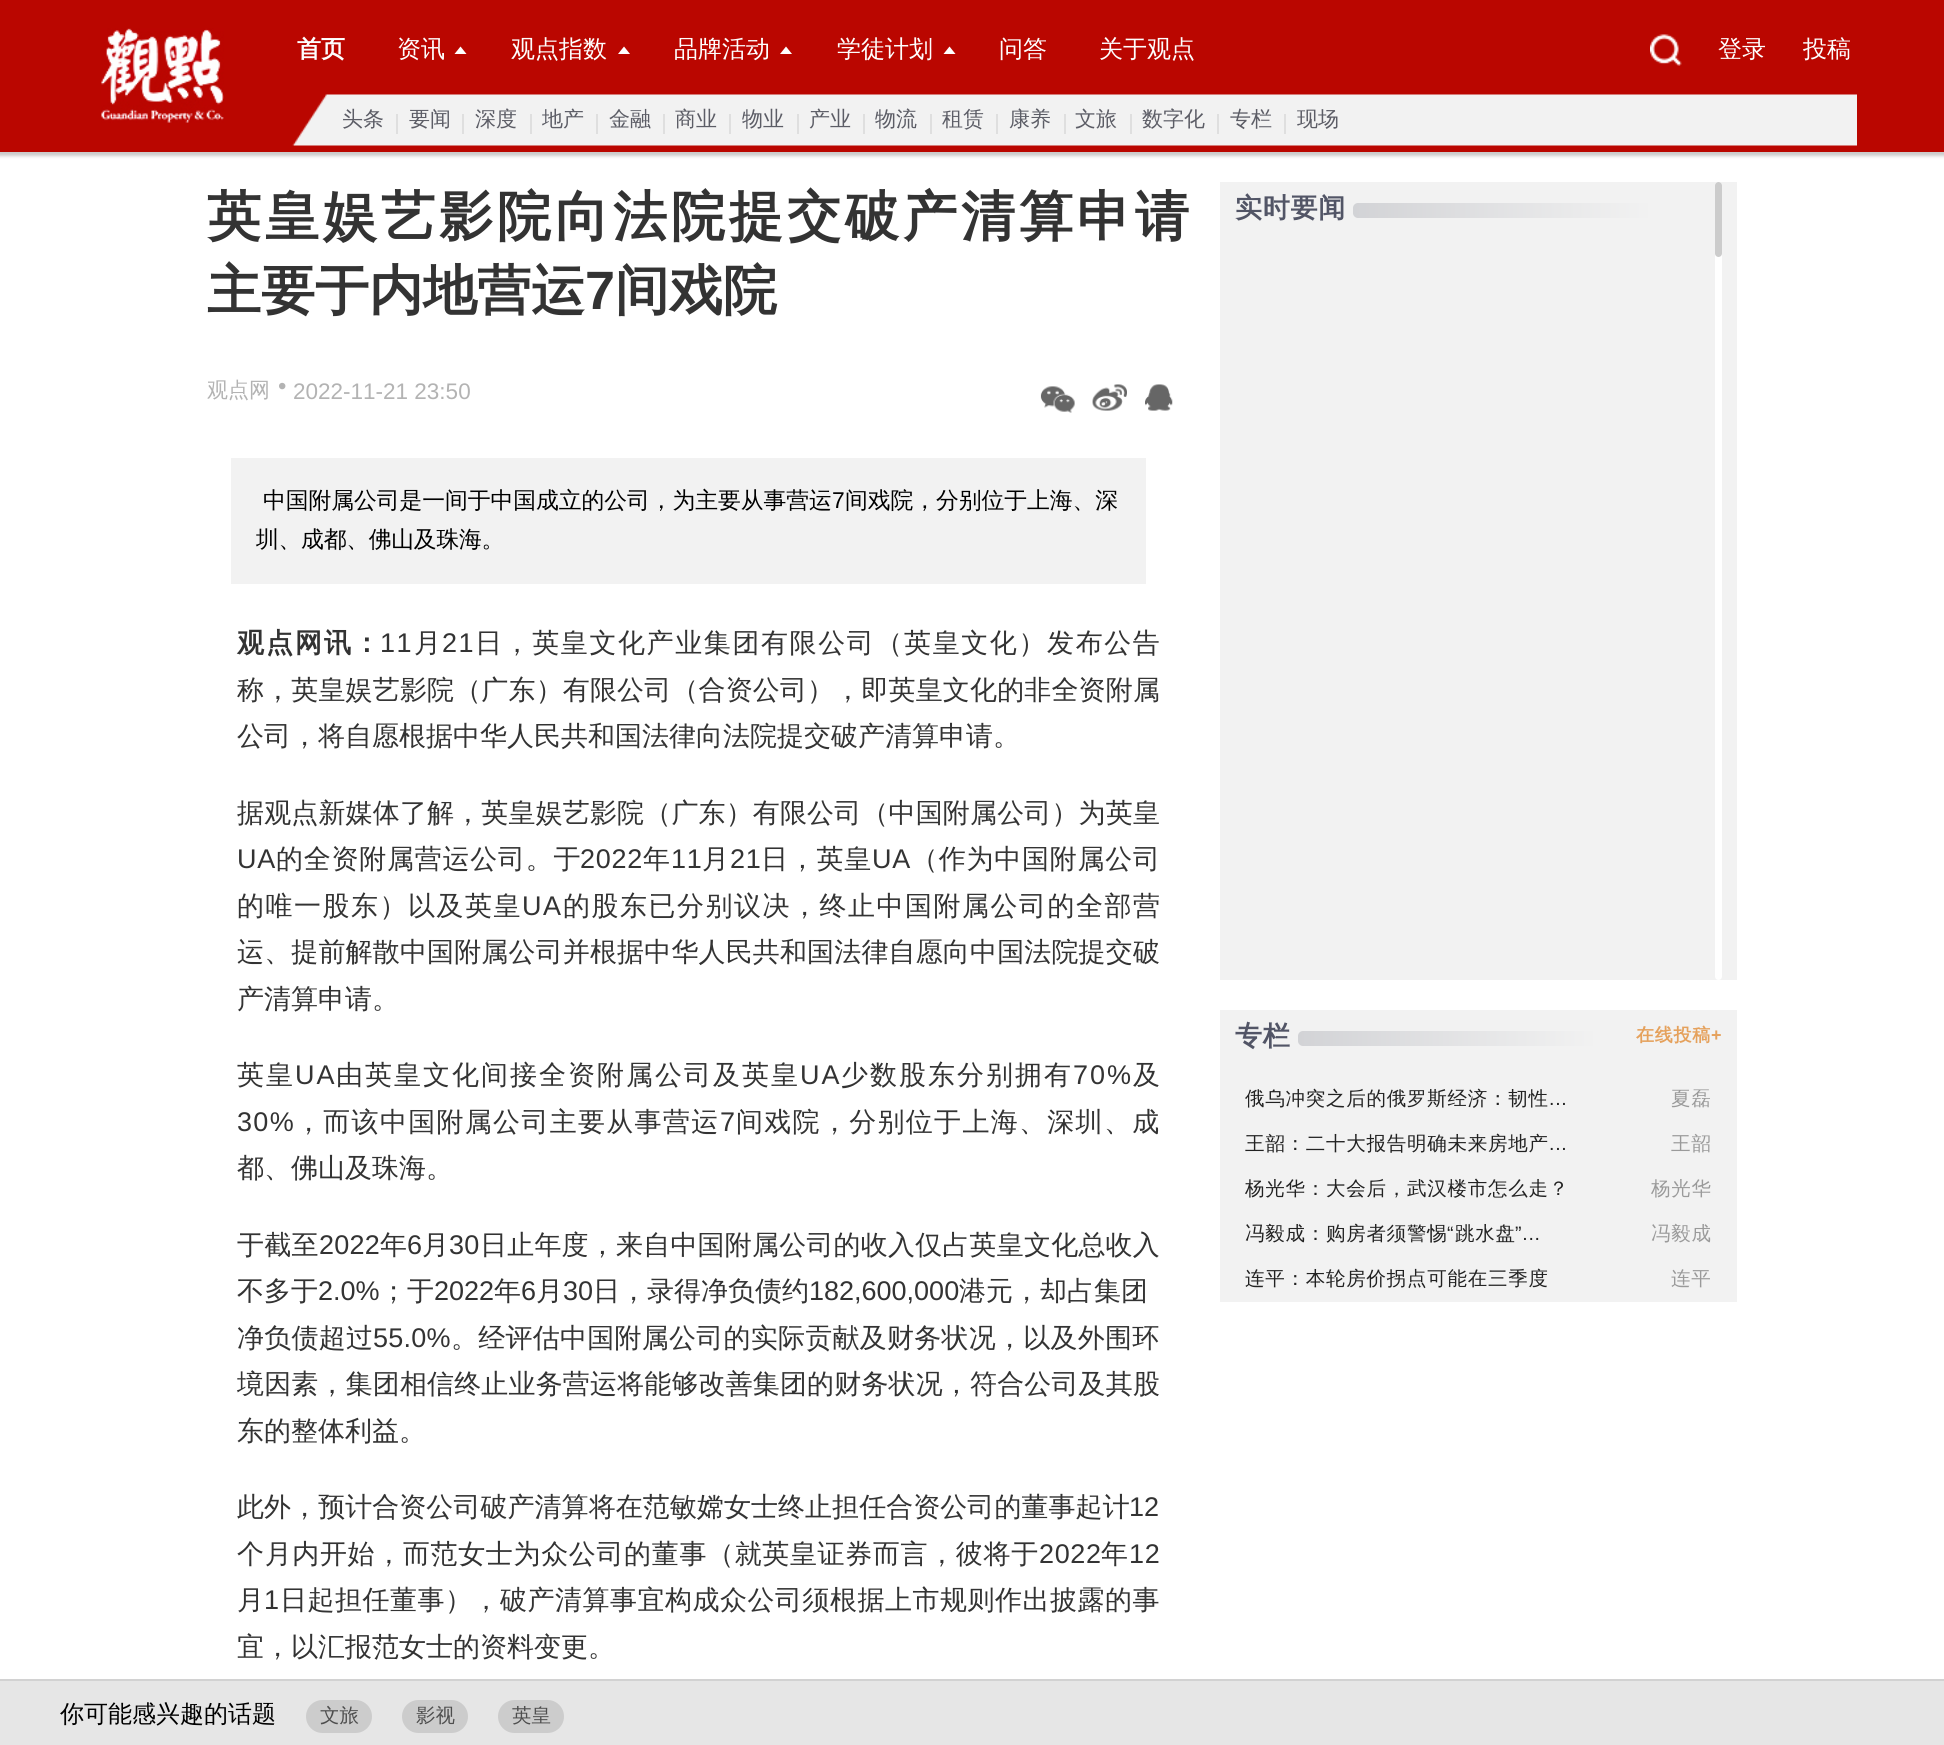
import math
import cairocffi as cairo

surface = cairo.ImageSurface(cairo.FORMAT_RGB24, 1944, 1745)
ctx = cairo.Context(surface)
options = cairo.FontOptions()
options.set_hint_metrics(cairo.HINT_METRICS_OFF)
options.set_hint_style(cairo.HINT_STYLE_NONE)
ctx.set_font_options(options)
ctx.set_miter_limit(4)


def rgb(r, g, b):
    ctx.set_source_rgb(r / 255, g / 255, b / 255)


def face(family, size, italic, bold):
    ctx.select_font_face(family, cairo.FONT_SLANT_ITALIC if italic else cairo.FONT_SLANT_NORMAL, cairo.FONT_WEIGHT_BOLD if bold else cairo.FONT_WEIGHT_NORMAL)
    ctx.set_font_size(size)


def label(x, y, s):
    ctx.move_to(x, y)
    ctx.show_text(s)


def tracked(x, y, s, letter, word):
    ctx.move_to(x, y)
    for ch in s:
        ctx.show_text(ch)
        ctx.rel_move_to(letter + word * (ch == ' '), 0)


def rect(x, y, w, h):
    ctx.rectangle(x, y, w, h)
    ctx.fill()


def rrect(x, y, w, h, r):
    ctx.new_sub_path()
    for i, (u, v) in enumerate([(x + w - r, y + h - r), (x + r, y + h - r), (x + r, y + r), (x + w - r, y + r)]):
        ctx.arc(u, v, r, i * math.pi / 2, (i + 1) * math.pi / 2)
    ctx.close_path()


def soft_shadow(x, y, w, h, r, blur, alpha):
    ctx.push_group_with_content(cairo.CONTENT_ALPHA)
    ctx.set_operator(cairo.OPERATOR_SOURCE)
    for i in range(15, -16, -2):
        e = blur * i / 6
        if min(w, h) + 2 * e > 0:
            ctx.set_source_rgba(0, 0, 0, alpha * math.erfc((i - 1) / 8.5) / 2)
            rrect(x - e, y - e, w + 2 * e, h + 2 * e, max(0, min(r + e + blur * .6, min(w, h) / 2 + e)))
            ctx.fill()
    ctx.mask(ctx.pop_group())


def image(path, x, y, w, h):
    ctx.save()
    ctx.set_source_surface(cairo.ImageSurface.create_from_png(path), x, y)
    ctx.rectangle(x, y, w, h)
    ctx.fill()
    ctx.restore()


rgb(255, 255, 255)
ctx.paint()
rgb(204, 203, 203)
soft_shadow(-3, -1, 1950, 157, 0, 1.5, 1)
rgb(186, 6, 0)
rect(0, 0, 1944, 152)
image('image0.png', 101, 28, 123, 95)
face('WenQuanYi Zen Hei', 24, 0, 1)
rgb(254, 254, 254)
label(297, 57, '首页')
face('WenQuanYi Zen Hei Medium', 24, 0, 0)
label(397, 57, '资讯')
rgb(255, 255, 255)
ctx.new_path()
ctx.move_to(466.5, 54)
ctx.line_to(454.5, 54)
ctx.line_to(460.5, 46.5)
ctx.close_path()
ctx.fill()
rgb(254, 254, 254)
label(511, 57, '观点指数')
rgb(255, 255, 255)
ctx.new_path()
ctx.move_to(630, 54)
ctx.line_to(618, 54)
ctx.line_to(624, 46.5)
ctx.close_path()
ctx.fill()
rgb(254, 254, 254)
label(674, 57, '品牌活动')
rgb(255, 255, 255)
ctx.new_path()
ctx.move_to(792, 54)
ctx.line_to(780, 54)
ctx.line_to(786, 46.5)
ctx.close_path()
ctx.fill()
rgb(254, 254, 254)
label(837, 57, '学徒计划')
rgb(255, 255, 255)
ctx.new_path()
ctx.move_to(955.5, 54)
ctx.line_to(943.5, 54)
ctx.line_to(949.5, 46.5)
ctx.close_path()
ctx.fill()
rgb(254, 254, 254)
label(999, 57, '问答')
label(1099, 57, '关于观点')
image('image1.png', 1650, 34, 32, 32)
label(1718, 57, '登录')
label(1803, 57, '投稿')
image('image2.png', 292, 94, 1565, 52)
face('WenQuanYi Zen Hei Medium', 21, 0, 0)
rgb(92, 93, 102)
label(342, 126, '头条')
rgb(223, 223, 223)
rect(396, 114, 2, 20)
rgb(92, 93, 102)
label(409, 126, '要闻')
rgb(223, 223, 223)
rect(462, 114, 2, 20)
rgb(92, 93, 102)
label(475, 126, '深度')
rgb(223, 223, 223)
rect(530, 114, 2, 20)
rgb(92, 93, 102)
label(542, 126, '地产')
rgb(223, 223, 223)
rect(596, 114, 2, 20)
rgb(92, 93, 102)
label(609, 126, '金融')
rgb(223, 223, 223)
rect(663, 114, 2, 20)
rgb(92, 93, 102)
label(675, 126, '商业')
rgb(223, 223, 223)
rect(729, 114, 2, 20)
rgb(92, 93, 102)
label(742, 126, '物业')
rgb(223, 223, 223)
rect(797, 114, 2, 20)
rgb(92, 93, 102)
label(809, 126, '产业')
rgb(223, 223, 223)
rect(863, 114, 2, 20)
rgb(92, 93, 102)
label(875, 126, '物流')
rgb(223, 223, 223)
rect(930, 114, 2, 20)
rgb(92, 93, 102)
label(942, 126, '租赁')
rgb(223, 223, 223)
rect(996, 114, 2, 20)
rgb(92, 93, 102)
label(1009, 126, '康养')
rgb(223, 223, 223)
rect(1064, 114, 2, 20)
rgb(92, 93, 102)
label(1075, 126, '文旅')
rgb(223, 223, 223)
rect(1130, 114, 2, 20)
rgb(92, 93, 102)
label(1142, 126, '数字化')
rgb(223, 223, 223)
rect(1217, 114, 2, 20)
rgb(92, 93, 102)
label(1230, 126, '专栏')
rgb(223, 223, 223)
rect(1284, 114, 2, 20)
rgb(92, 93, 102)
label(1297, 126, '现场')
face('WenQuanYi Zen Hei', 54, 0, 1)
rgb(51, 51, 51)
tracked(207, 235, '英皇娱艺影院向法院提交破产清算申请', 4, 0)
label(207, 309, '主要于内地营运')
face('Liberation Sans', 54, 0, 1)
label(585, 309, '7')
face('WenQuanYi Zen Hei', 54, 0, 1)
label(615, 309, '间戏院')
face('WenQuanYi Zen Hei Medium', 21, 0, 0)
rgb(179, 179, 179)
label(207, 397, '观点网')
face('Liberation Sans', 24, 0, 0)
label(278, 394, '•')
face('Liberation Sans', 22.5, 0, 0)
label(293, 399, '2022-11-21 23:50')
image('image3.png', 1040, 386, 35, 27)
image('image4.png', 1092, 384, 35, 27)
image('image5.png', 1145, 384, 28, 27)
rgb(242, 242, 242)
rect(231, 458, 915, 126)
face('WenQuanYi Zen Hei Medium', 22.85, 0, 0)
rgb(0, 0, 0)
tracked(263, 508, '中国附属公司是一间于中国成立的公司，为主要从事营运', -0.1, 0)
face('Liberation Sans', 22.85, 0, 0)
label(832, 508, '7')
face('WenQuanYi Zen Hei Medium', 22.85, 0, 0)
tracked(845, 508, '间戏院，分别位于上海、深', -0.1, 0)
tracked(256, 547, '圳、成都、佛山及珠海。', -0.3, 0)
face('WenQuanYi Zen Hei', 27, 0, 1)
rgb(51, 51, 51)
tracked(237, 652, '观点网讯：', 2, 0)
face('Liberation Sans', 27, 0, 0)
tracked(380, 652, '11', 1.6, 0)
face('WenQuanYi Zen Hei Medium', 27, 0, 0)
tracked(414, 652, '月', 1.6, 0)
face('Liberation Sans', 27, 0, 0)
tracked(442, 652, '21', 1.6, 0)
face('WenQuanYi Zen Hei Medium', 27, 0, 0)
tracked(475, 652, '日，英皇文化产业集团有限公司（英皇文化）发布公告', 1.6, 0)
tracked(237, 699, '称，英皇娱艺影院（广东）有限公司（合资公司），即英皇文化的非全资附属', 0.15, 0)
label(237, 745, '公司，将自愿根据中华人民共和国法律向法院提交破产清算申请。')
tracked(237, 822, '据观点新媒体了解，英皇娱艺影院（广东）有限公司（中国附属公司）为英皇', 0.15, 0)
face('Liberation Sans', 27, 0, 0)
tracked(237, 868, 'UA', 0.75, 0)
face('WenQuanYi Zen Hei Medium', 27, 0, 0)
tracked(276, 868, '的全资附属营运公司。于', 0.75, 0)
face('Liberation Sans', 27, 0, 0)
tracked(580, 868, '2022', 0.75, 0)
face('WenQuanYi Zen Hei Medium', 27, 0, 0)
tracked(643, 868, '年', 0.75, 0)
face('Liberation Sans', 27, 0, 0)
tracked(671, 868, '11', 0.75, 0)
face('WenQuanYi Zen Hei Medium', 27, 0, 0)
tracked(702, 868, '月', 0.75, 0)
face('Liberation Sans', 27, 0, 0)
tracked(730, 868, '21', 0.75, 0)
face('WenQuanYi Zen Hei Medium', 27, 0, 0)
tracked(761, 868, '日，英皇', 0.75, 0)
face('Liberation Sans', 27, 0, 0)
tracked(872, 868, 'UA', 0.75, 0)
face('WenQuanYi Zen Hei Medium', 27, 0, 0)
tracked(911, 868, '（作为中国附属公司', 0.75, 0)
tracked(237, 915, '的唯一股东）以及英皇', 1.5, 0)
face('Liberation Sans', 27, 0, 0)
tracked(522, 915, 'UA', 1.5, 0)
face('WenQuanYi Zen Hei Medium', 27, 0, 0)
tracked(563, 915, '的股东已分别议决，终止中国附属公司的全部营', 1.5, 0)
tracked(237, 961, '运、提前解散中国附属公司并根据中华人民共和国法律自愿向中国法院提交破', 0.15, 0)
label(237, 1008, '产清算申请。')
tracked(237, 1084, '英皇', 2, 0)
face('Liberation Sans', 27, 0, 0)
tracked(295, 1084, 'UA', 2, 0)
face('WenQuanYi Zen Hei Medium', 27, 0, 0)
tracked(336, 1084, '由英皇文化间接全资附属公司及英皇', 2, 0)
face('Liberation Sans', 27, 0, 0)
tracked(800, 1084, 'UA', 2, 0)
face('WenQuanYi Zen Hei Medium', 27, 0, 0)
tracked(841, 1084, '少数股东分别拥有', 2, 0)
face('Liberation Sans', 27, 0, 0)
tracked(1073, 1084, '70%', 2, 0)
face('WenQuanYi Zen Hei Medium', 27, 0, 0)
tracked(1133, 1084, '及', 2, 0)
face('Liberation Sans', 27, 0, 0)
tracked(237, 1131, '30%', 1.3, 0)
face('WenQuanYi Zen Hei Medium', 27, 0, 0)
tracked(295, 1131, '，而该中国附属公司主要从事营运', 1.3, 0)
face('Liberation Sans', 27, 0, 0)
tracked(720, 1131, '7', 1.3, 0)
face('WenQuanYi Zen Hei Medium', 27, 0, 0)
tracked(736, 1131, '间戏院，分别位于上海、深圳、成', 1.3, 0)
label(237, 1177, '都、佛山及珠海。')
tracked(237, 1254, '于截至', 0.2, 0)
face('Liberation Sans', 27, 0, 0)
tracked(319, 1254, '2022', 0.2, 0)
face('WenQuanYi Zen Hei Medium', 27, 0, 0)
tracked(380, 1254, '年', 0.2, 0)
face('Liberation Sans', 27, 0, 0)
tracked(407, 1254, '6', 0.2, 0)
face('WenQuanYi Zen Hei Medium', 27, 0, 0)
tracked(422, 1254, '月', 0.2, 0)
face('Liberation Sans', 27, 0, 0)
tracked(449, 1254, '30', 0.2, 0)
face('WenQuanYi Zen Hei Medium', 27, 0, 0)
tracked(480, 1254, '日止年度，来自中国附属公司的收入仅占英皇文化总收入', 0.2, 0)
label(237, 1300, '不多于')
face('Liberation Sans', 27, 0, 0)
label(318, 1300, '2.0%')
face('WenQuanYi Zen Hei Medium', 27, 0, 0)
label(380, 1300, '；于')
face('Liberation Sans', 27, 0, 0)
label(434, 1300, '2022')
face('WenQuanYi Zen Hei Medium', 27, 0, 0)
label(494, 1300, '年')
face('Liberation Sans', 27, 0, 0)
label(521, 1300, '6')
face('WenQuanYi Zen Hei Medium', 27, 0, 0)
label(536, 1300, '月')
face('Liberation Sans', 27, 0, 0)
label(563, 1300, '30')
face('WenQuanYi Zen Hei Medium', 27, 0, 0)
label(593, 1300, '日，录得净负债约')
face('Liberation Sans', 27, 0, 0)
label(809, 1300, '182,600,000')
face('WenQuanYi Zen Hei Medium', 27, 0, 0)
label(959, 1300, '港元，却占集团')
tracked(237, 1347, '净负债超过', 0.25, 0)
face('Liberation Sans', 27, 0, 0)
tracked(373, 1347, '55.0%', 0.25, 0)
face('WenQuanYi Zen Hei Medium', 27, 0, 0)
tracked(451, 1347, '。经评估中国附属公司的实际贡献及财务状况，以及外围环', 0.25, 0)
tracked(237, 1393, '境因素，集团相信终止业务营运将能够改善集团的财务状况，符合公司及其股', 0.15, 0)
label(237, 1440, '东的整体利益。')
tracked(237, 1516, '此外，预计合资公司破产清算将在范敏嫦女士终止担任合资公司的董事起计', 0.05, 0)
face('Liberation Sans', 27, 0, 0)
tracked(1129, 1516, '12', 0.05, 0)
face('WenQuanYi Zen Hei Medium', 27, 0, 0)
tracked(237, 1563, '个月内开始，而范女士为众公司的董事（就英皇证券而言，彼将于', 0.65, 0)
face('Liberation Sans', 27, 0, 0)
tracked(1039, 1563, '2022', 0.65, 0)
face('WenQuanYi Zen Hei Medium', 27, 0, 0)
tracked(1101, 1563, '年', 0.65, 0)
face('Liberation Sans', 27, 0, 0)
tracked(1129, 1563, '12', 0.65, 0)
face('WenQuanYi Zen Hei Medium', 27, 0, 0)
tracked(237, 1609, '月', 0.5, 0)
face('Liberation Sans', 27, 0, 0)
tracked(264, 1609, '1', 0.5, 0)
face('WenQuanYi Zen Hei Medium', 27, 0, 0)
tracked(280, 1609, '日起担任董事），破产清算事宜构成众公司须根据上市规则作出披露的事', 0.5, 0)
label(237, 1656, '宜，以汇报范女士的资料变更。')
rgb(242, 242, 242)
rect(1220, 182, 517, 798)
face('WenQuanYi Zen Hei', 27, 0, 1)
rgb(82, 85, 102)
tracked(1235, 217, '实时要闻', 0.75, 0)
gradient = cairo.LinearGradient(1353, 210, 1653, 210)
gradient.add_color_stop_rgba(0, 0.824, 0.827, 0.839, 1)
gradient.add_color_stop_rgba(1, 0.949, 0.949, 0.949, 1)
ctx.set_source(gradient)
rrect(1353, 203, 300, 15, 5)
ctx.fill()
rgb(255, 255, 255)
rrect(1715, 182, 7, 798, 3.5)
ctx.fill()
rgb(204, 204, 204)
rrect(1715, 182, 7, 75, 3.5)
ctx.fill()
rgb(242, 242, 242)
rect(1220, 1010, 517, 292)
rgb(82, 85, 102)
tracked(1235, 1045, '专栏', 0.75, 0)
gradient = cairo.LinearGradient(1298, 1038, 1598, 1038)
gradient.add_color_stop_rgba(0, 0.824, 0.827, 0.839, 1)
gradient.add_color_stop_rgba(1, 0.949, 0.949, 0.949, 1)
ctx.set_source(gradient)
rrect(1298, 1031, 300, 15, 5)
ctx.fill()
face('WenQuanYi Zen Hei', 18, 0, 1)
rgb(229, 161, 92)
tracked(1636, 1041, '在线投稿', 0.75, 0)
face('Liberation Sans', 18, 0, 1)
tracked(1711, 1041, '+', 0.75, 0)
face('WenQuanYi Zen Hei Medium', 19.5, 0, 0)
rgb(34, 34, 34)
tracked(1245, 1105, '俄乌冲突之后的俄罗斯经济：韧性', 0.75, 0)
face('Liberation Sans', 19.5, 0, 0)
tracked(1549, 1105, '...', 0.75, 0)
face('WenQuanYi Zen Hei Medium', 19.5, 0, 0)
rgb(154, 154, 154)
tracked(1671, 1105, '夏磊', 0.75, 0)
rgb(34, 34, 34)
tracked(1245, 1150, '王韶：二十大报告明确未来房地产', 0.75, 0)
face('Liberation Sans', 19.5, 0, 0)
tracked(1549, 1150, '...', 0.75, 0)
face('WenQuanYi Zen Hei Medium', 19.5, 0, 0)
rgb(154, 154, 154)
tracked(1671, 1150, '王韶', 0.75, 0)
rgb(34, 34, 34)
tracked(1245, 1195, '杨光华：大会后，武汉楼市怎么走？', 0.75, 0)
rgb(154, 154, 154)
tracked(1651, 1195, '杨光华', 0.75, 0)
rgb(34, 34, 34)
tracked(1245, 1240, '冯毅成：购房者须警惕', 0.75, 0)
face('Liberation Sans', 19.5, 0, 0)
tracked(1447, 1240, '“', 0.75, 0)
face('WenQuanYi Zen Hei Medium', 19.5, 0, 0)
tracked(1455, 1240, '跳水盘', 0.75, 0)
face('Liberation Sans', 19.5, 0, 0)
tracked(1515, 1240, '”...', 0.75, 0)
face('WenQuanYi Zen Hei Medium', 19.5, 0, 0)
rgb(154, 154, 154)
tracked(1651, 1240, '冯毅成', 0.75, 0)
rgb(34, 34, 34)
tracked(1245, 1285, '连平：本轮房价拐点可能在三季度', 0.75, 0)
rgb(154, 154, 154)
tracked(1671, 1285, '连平', 0.75, 0)
rgb(230, 230, 230)
rect(0, 1681, 1944, 64)
rgb(210, 210, 210)
rect(0, 1679, 1944, 2)
face('WenQuanYi Zen Hei Medium', 24, 0, 0)
rgb(0, 0, 0)
label(60, 1722, '你可能感兴趣的话题')
rgb(204, 204, 204)
rrect(306, 1700, 66, 33, 16.5)
ctx.fill()
face('WenQuanYi Zen Hei Medium', 19.5, 0, 0)
rgb(78, 78, 78)
label(320, 1722, '文旅')
rgb(204, 204, 204)
rrect(402, 1700, 66, 33, 16.5)
ctx.fill()
rgb(78, 78, 78)
label(416, 1722, '影视')
rgb(204, 204, 204)
rrect(498, 1700, 66, 33, 16.5)
ctx.fill()
rgb(78, 78, 78)
label(512, 1722, '英皇')
surface.write_to_png('render.png')
